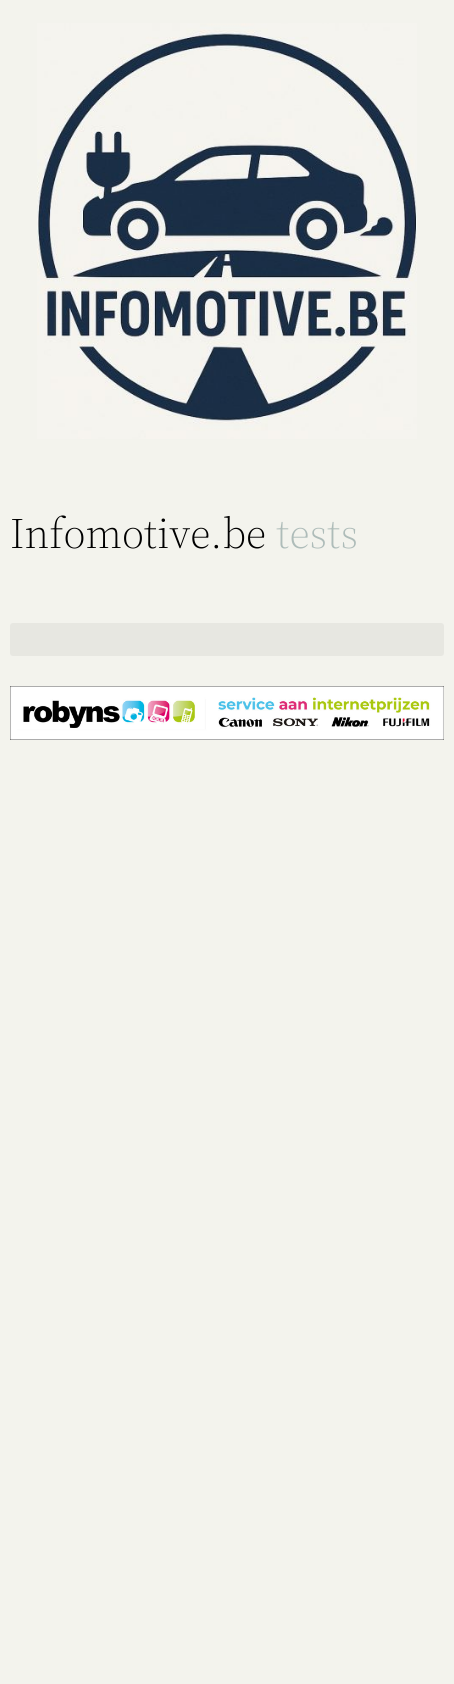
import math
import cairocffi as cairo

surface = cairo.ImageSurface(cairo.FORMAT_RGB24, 454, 1684)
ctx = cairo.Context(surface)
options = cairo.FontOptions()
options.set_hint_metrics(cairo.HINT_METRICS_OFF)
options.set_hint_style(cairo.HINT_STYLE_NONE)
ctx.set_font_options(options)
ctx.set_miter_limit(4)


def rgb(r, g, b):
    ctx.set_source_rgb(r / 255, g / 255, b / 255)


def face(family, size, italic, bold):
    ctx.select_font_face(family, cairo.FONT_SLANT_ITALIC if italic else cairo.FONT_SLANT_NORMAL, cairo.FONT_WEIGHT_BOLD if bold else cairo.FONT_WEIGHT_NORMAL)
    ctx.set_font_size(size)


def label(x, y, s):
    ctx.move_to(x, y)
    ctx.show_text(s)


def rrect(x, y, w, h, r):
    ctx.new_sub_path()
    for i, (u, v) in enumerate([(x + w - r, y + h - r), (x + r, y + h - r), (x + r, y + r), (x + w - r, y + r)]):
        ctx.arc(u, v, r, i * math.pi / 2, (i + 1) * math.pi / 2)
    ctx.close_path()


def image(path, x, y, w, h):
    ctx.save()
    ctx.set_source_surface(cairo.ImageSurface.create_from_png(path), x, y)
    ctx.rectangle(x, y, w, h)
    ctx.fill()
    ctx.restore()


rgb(243, 243, 237)
ctx.paint()
image('image0.png', 37, 23, 380, 416)
face('Source Serif 4 Light', 43, 0, 0)
rgb(0, 0, 0)
label(10, 548, 'Infomotive.be')
rgb(174, 188, 185)
label(276, 548, 'tests')
rgb(231, 231, 225)
rrect(10, 623, 434, 33, 3)
ctx.fill()
image('image1.png', 10, 686, 434, 54)
surface.write_to_png('render.png')
